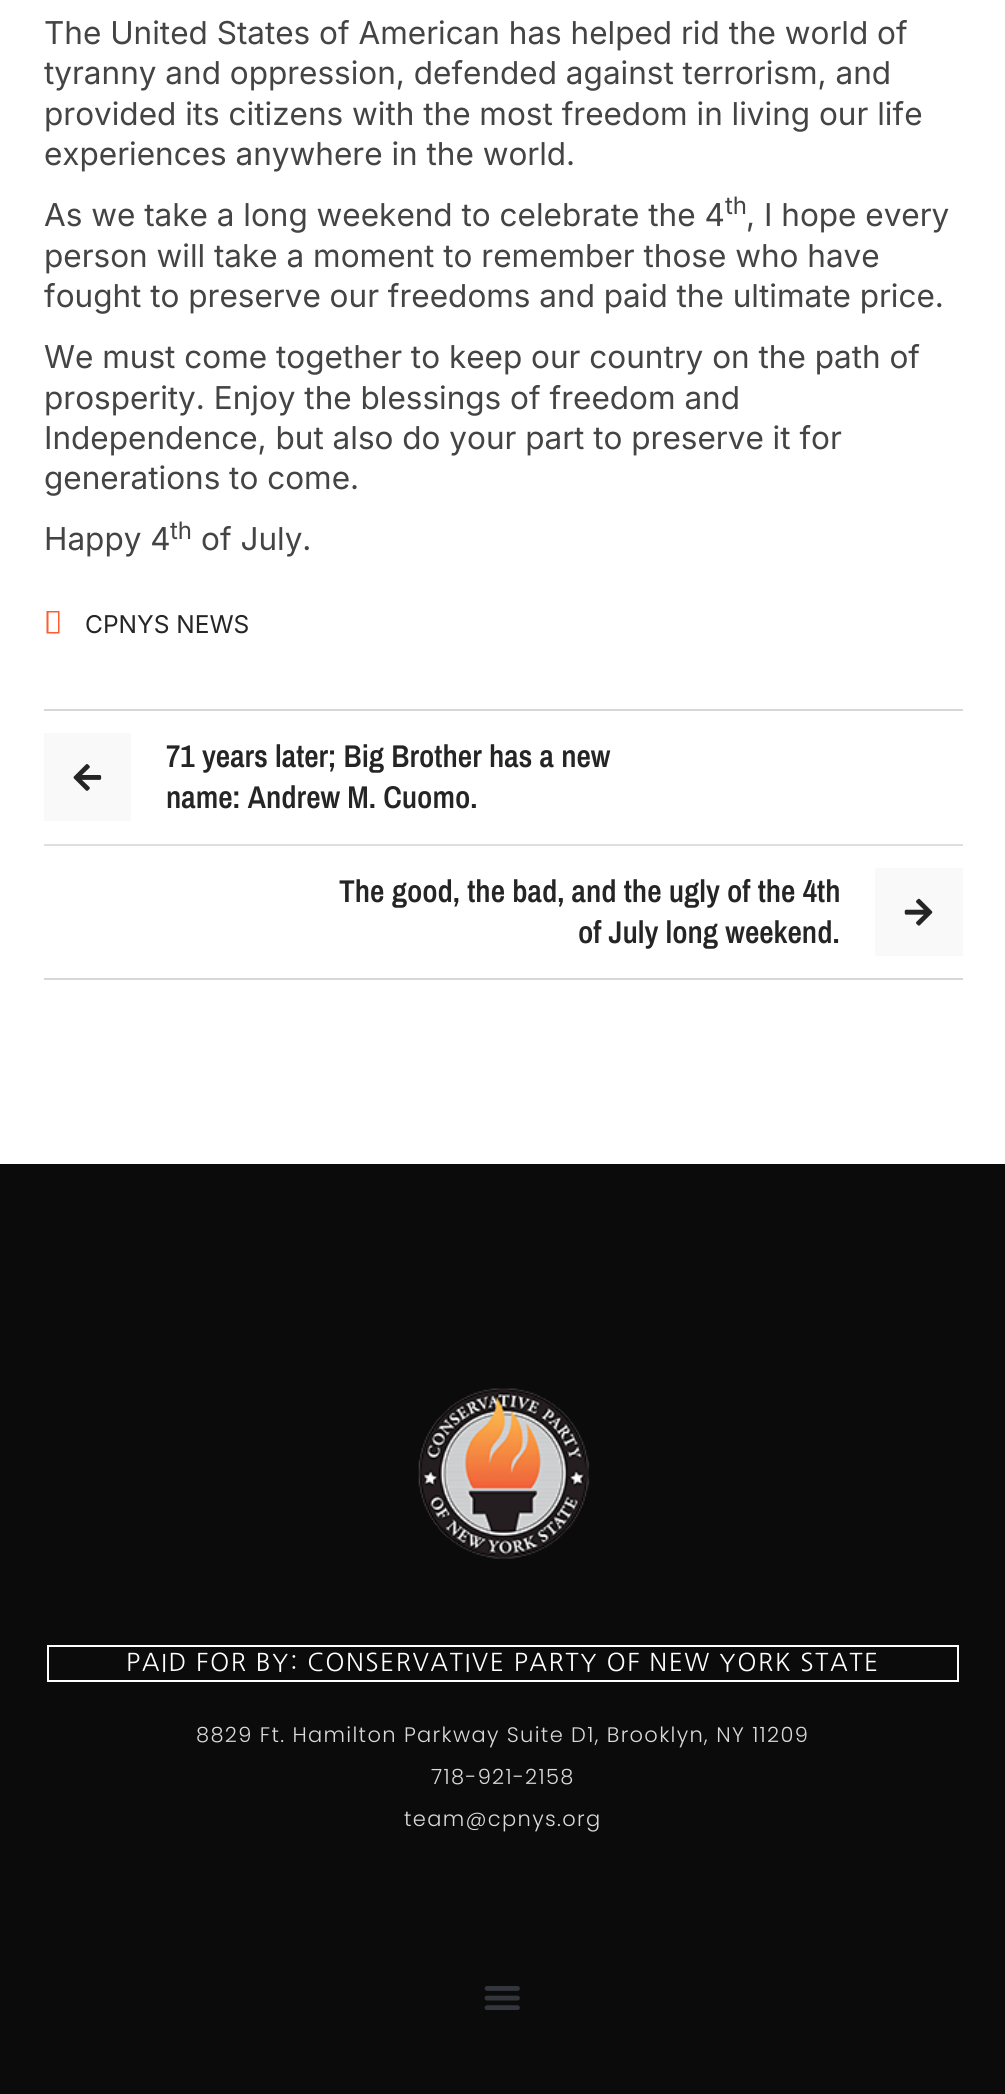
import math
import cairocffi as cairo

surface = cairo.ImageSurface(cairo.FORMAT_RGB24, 1005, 2094)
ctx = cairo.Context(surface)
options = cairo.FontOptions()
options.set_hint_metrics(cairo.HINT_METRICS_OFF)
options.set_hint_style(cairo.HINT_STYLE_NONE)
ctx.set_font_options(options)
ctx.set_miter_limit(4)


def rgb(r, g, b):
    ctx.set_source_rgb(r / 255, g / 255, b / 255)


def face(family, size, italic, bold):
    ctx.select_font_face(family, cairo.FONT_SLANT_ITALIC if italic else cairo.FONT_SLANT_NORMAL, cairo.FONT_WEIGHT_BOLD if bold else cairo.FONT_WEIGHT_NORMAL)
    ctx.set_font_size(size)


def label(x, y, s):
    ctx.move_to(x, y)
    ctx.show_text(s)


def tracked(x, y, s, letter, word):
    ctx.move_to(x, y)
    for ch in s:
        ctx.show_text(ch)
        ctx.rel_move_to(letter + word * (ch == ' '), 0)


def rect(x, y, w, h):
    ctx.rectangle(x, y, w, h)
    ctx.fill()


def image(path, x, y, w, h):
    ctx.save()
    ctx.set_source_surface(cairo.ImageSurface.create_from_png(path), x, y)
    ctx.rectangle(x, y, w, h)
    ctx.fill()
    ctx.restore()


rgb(255, 255, 255)
ctx.paint()
face('Inter', 31.5, 0, 0)
rgb(68, 68, 68)
label(44, 44, 'The United States of American has helped rid the world of')
label(44, 84, 'tyranny and oppression, defended against terrorism, and')
label(44, 125, 'provided its citizens with the most freedom in living our life')
label(44, 165, 'experiences anywhere in the world.')
label(44, 226, 'As we take a long weekend to celebrate the 4')
face('Inter', 24, 0, 0)
label(725, 214, 'th')
face('Inter', 31.5, 0, 0)
label(746, 226, ', I hope every')
label(44, 267, 'person will take a moment to remember those who have')
label(44, 307, 'fought to preserve our freedoms and paid the ultimate price.')
label(44, 368, 'We must come together to keep our country on the path of')
label(44, 409, 'prosperity. Enjoy the blessings of freedom and')
label(44, 449, 'Independence, but also do your part to preserve it for')
label(44, 489, 'generations to come.')
label(44, 550, 'Happy 4')
face('Inter', 24, 0, 0)
label(170, 539, 'th')
face('Inter', 31.5, 0, 0)
label(201, 550, 'of July.')
rgb(255, 92, 49)
ctx.new_path()
ctx.move_to(46.5, 633.5)
ctx.line_to(46.5, 611)
ctx.line_to(59.5, 611)
ctx.line_to(59.5, 633.5)
ctx.close_path()
ctx.move_to(48.5, 632)
ctx.line_to(58, 632)
ctx.line_to(58, 612.5)
ctx.line_to(48.5, 612.5)
ctx.close_path()
ctx.fill()
face('Inter', 24.5, 0, 0)
rgb(37, 37, 37)
label(85, 633, 'CPNYS NEWS')
rgb(215, 215, 215)
rect(44, 709, 919, 2)
rect(44, 978, 919, 2)
rgb(223, 223, 223)
rect(44, 844, 919, 2)
rgb(249, 249, 249)
rect(44, 733, 87, 88)
image('image0.png', 73, 764, 29, 27)
face('Archivo Narrow SemiBold', 31.5, 0, 0)
rgb(37, 37, 37)
label(166, 767, '71 years later; Big Brother has a new')
label(166, 808, 'name: Andrew M. Cuomo.')
label(339, 902, 'The good, the bad, and the ugly of the 4th')
label(578, 943, 'of July long weekend.')
rgb(249, 249, 249)
rect(875, 868, 88, 88)
image('image1.png', 904, 898, 29, 28)
rgb(11, 11, 11)
rect(0, 1164, 1005, 930)
image('image2.png', 418, 1388, 172, 171)
ctx.rectangle(48, 1646, 910, 35)
rgb(255, 255, 255)
ctx.stroke()
face('NanumGothic', 24.5, 0, 0)
tracked(126, 1671, 'PAID FOR BY: CONSERVATIVE PARTY OF NEW YORK STATE', 1.5, 0)
face('Poppins Light', 21, 0, 0)
rgb(218, 218, 218)
tracked(196, 1742, '8829 Ft. Hamilton Parkway Suite D1, Brooklyn, NY 11209', 1.33, 0)
tracked(431, 1784, '718-921-2158', 1.33, 0)
tracked(404, 1826, 'team@cpnys.org', 1.33, 0)
image('image3.png', 484, 1986, 36, 24)
surface.write_to_png('render.png')
